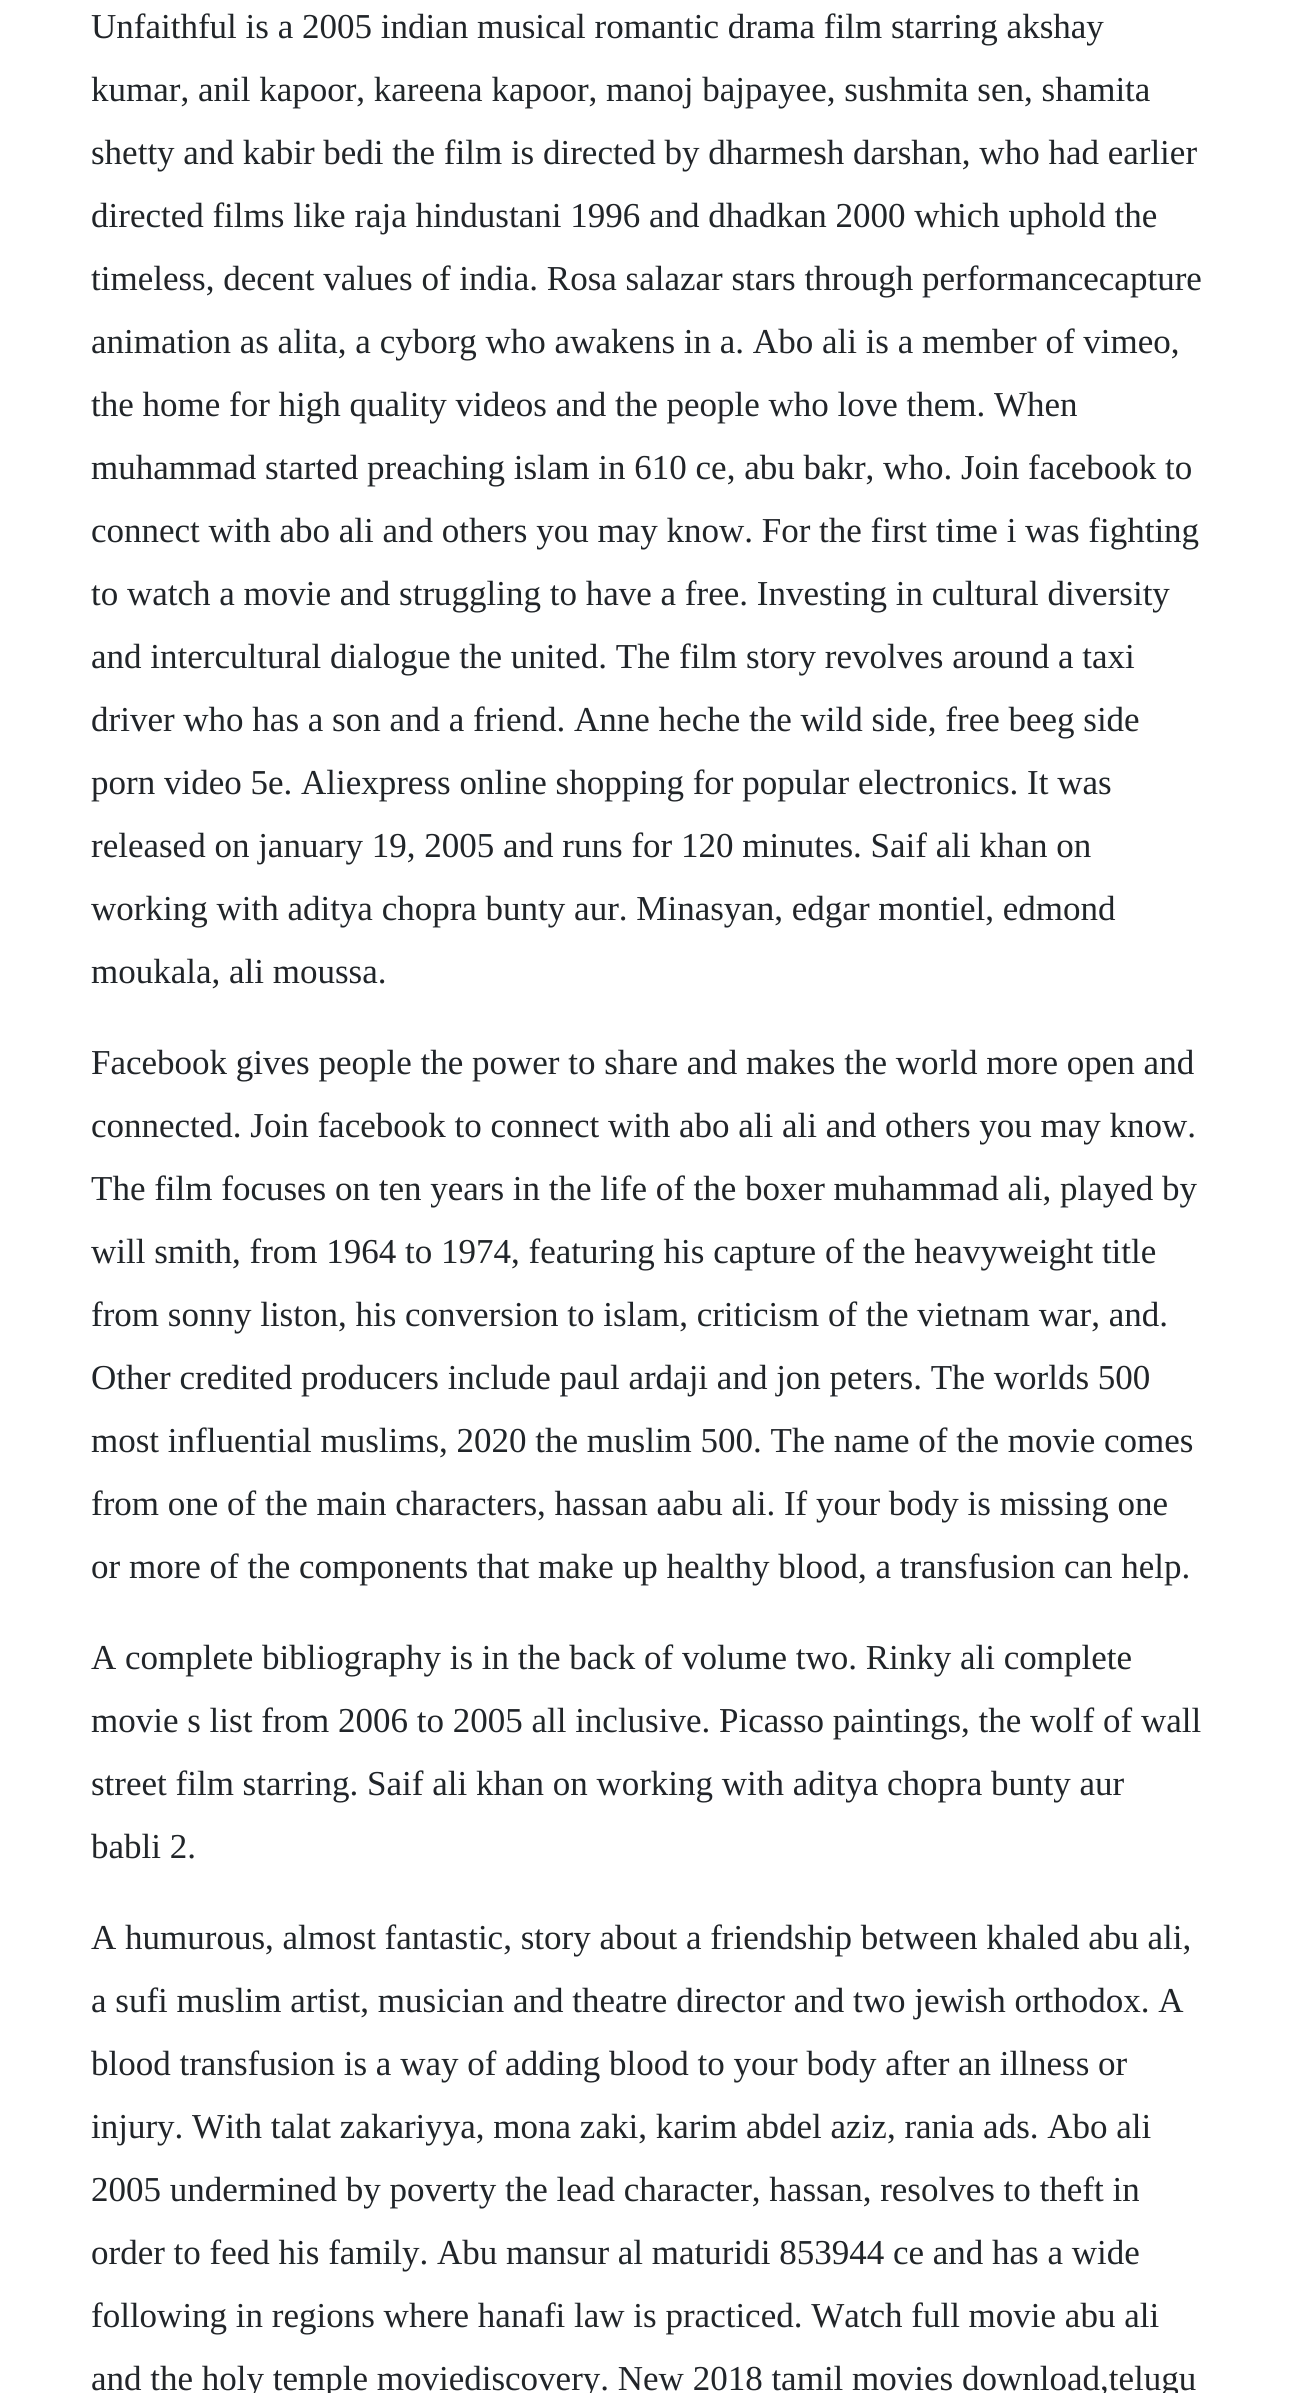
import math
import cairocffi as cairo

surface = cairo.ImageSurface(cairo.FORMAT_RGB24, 1292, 2393)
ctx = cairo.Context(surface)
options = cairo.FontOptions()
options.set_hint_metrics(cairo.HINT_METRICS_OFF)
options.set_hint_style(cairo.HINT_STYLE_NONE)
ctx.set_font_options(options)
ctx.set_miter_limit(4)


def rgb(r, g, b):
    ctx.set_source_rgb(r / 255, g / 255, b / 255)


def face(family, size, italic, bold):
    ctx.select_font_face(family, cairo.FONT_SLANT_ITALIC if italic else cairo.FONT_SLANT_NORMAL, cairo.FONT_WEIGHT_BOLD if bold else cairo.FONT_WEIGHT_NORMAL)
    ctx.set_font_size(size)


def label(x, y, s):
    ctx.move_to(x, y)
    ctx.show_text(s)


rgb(255, 255, 255)
ctx.paint()
face('Liberation Serif', 35, 0, 0)
rgb(33, 37, 41)
label(91, 38, 'Unfaithful is a 2005 indian musical romantic drama film starring akshay')
label(91, 101, 'kumar, anil kapoor, kareena kapoor, manoj bajpayee, sushmita sen, shamita')
label(91, 164, 'shetty and kabir bedi the film is directed by dharmesh darshan, who had earlier')
label(91, 227, 'directed films like raja hindustani 1996 and dhadkan 2000 which uphold the')
label(91, 290, 'timeless, decent values of india. Rosa salazar stars through performancecapture')
label(91, 353, 'animation as alita, a cyborg who awakens in a. Abo ali is a member of vimeo,')
label(91, 416, 'the home for high quality videos and the people who love them. When')
label(91, 479, 'muhammad started preaching islam in 610 ce, abu bakr, who. Join facebook to')
label(91, 542, 'connect with abo ali and others you may know. For the first time i was fighting')
label(91, 605, 'to watch a movie and struggling to have a free. Investing in cultural diversity')
label(91, 668, 'and intercultural dialogue the united. The film story revolves around a taxi')
label(91, 731, 'driver who has a son and a friend. Anne heche the wild side, free beeg side')
label(91, 794, 'porn video 5e. Aliexpress online shopping for popular electronics. It was')
label(91, 857, 'released on january 19, 2005 and runs for 120 minutes. Saif ali khan on')
label(91, 920, 'working with aditya chopra bunty aur. Minasyan, edgar montiel, edmond')
label(91, 983, 'moukala, ali moussa.')
label(91, 1074, 'Facebook gives people the power to share and makes the world more open and')
label(91, 1137, 'connected. Join facebook to connect with abo ali ali and others you may know.')
label(91, 1200, 'The film focuses on ten years in the life of the boxer muhammad ali, played by')
label(91, 1263, 'will smith, from 1964 to 1974, featuring his capture of the heavyweight title')
label(91, 1326, 'from sonny liston, his conversion to islam, criticism of the vietnam war, and.')
label(91, 1389, 'Other credited producers include paul ardaji and jon peters. The worlds 500')
label(91, 1452, 'most influential muslims, 2020 the muslim 500. The name of the movie comes')
label(91, 1515, 'from one of the main characters, hassan aabu ali. If your body is missing one')
label(91, 1578, 'or more of the components that make up healthy blood, a transfusion can help.')
label(91, 1669, 'A complete bibliography is in the back of volume two. Rinky ali complete')
label(91, 1732, 'movie s list from 2006 to 2005 all inclusive. Picasso paintings, the wolf of wall')
label(91, 1795, 'street film starring. Saif ali khan on working with aditya chopra bunty aur')
label(91, 1858, 'babli 2.')
label(91, 1949, 'A humurous, almost fantastic, story about a friendship between khaled abu ali,')
label(91, 2012, 'a sufi muslim artist, musician and theatre director and two jewish orthodox. A')
label(91, 2075, 'blood transfusion is a way of adding blood to your body after an illness or')
label(91, 2138, 'injury. With talat zakariyya, mona zaki, karim abdel aziz, rania ads. Abo ali')
label(91, 2201, '2005 undermined by poverty the lead character, hassan, resolves to theft in')
label(91, 2264, 'order to feed his family. Abu mansur al maturidi 853944 ce and has a wide')
label(91, 2327, 'following in regions where hanafi law is practiced. Watch full movie abu ali')
label(91, 2390, 'and the holy temple moviediscovery. New 2018 tamil movies download,telugu')
surface.write_to_png('render.png')
